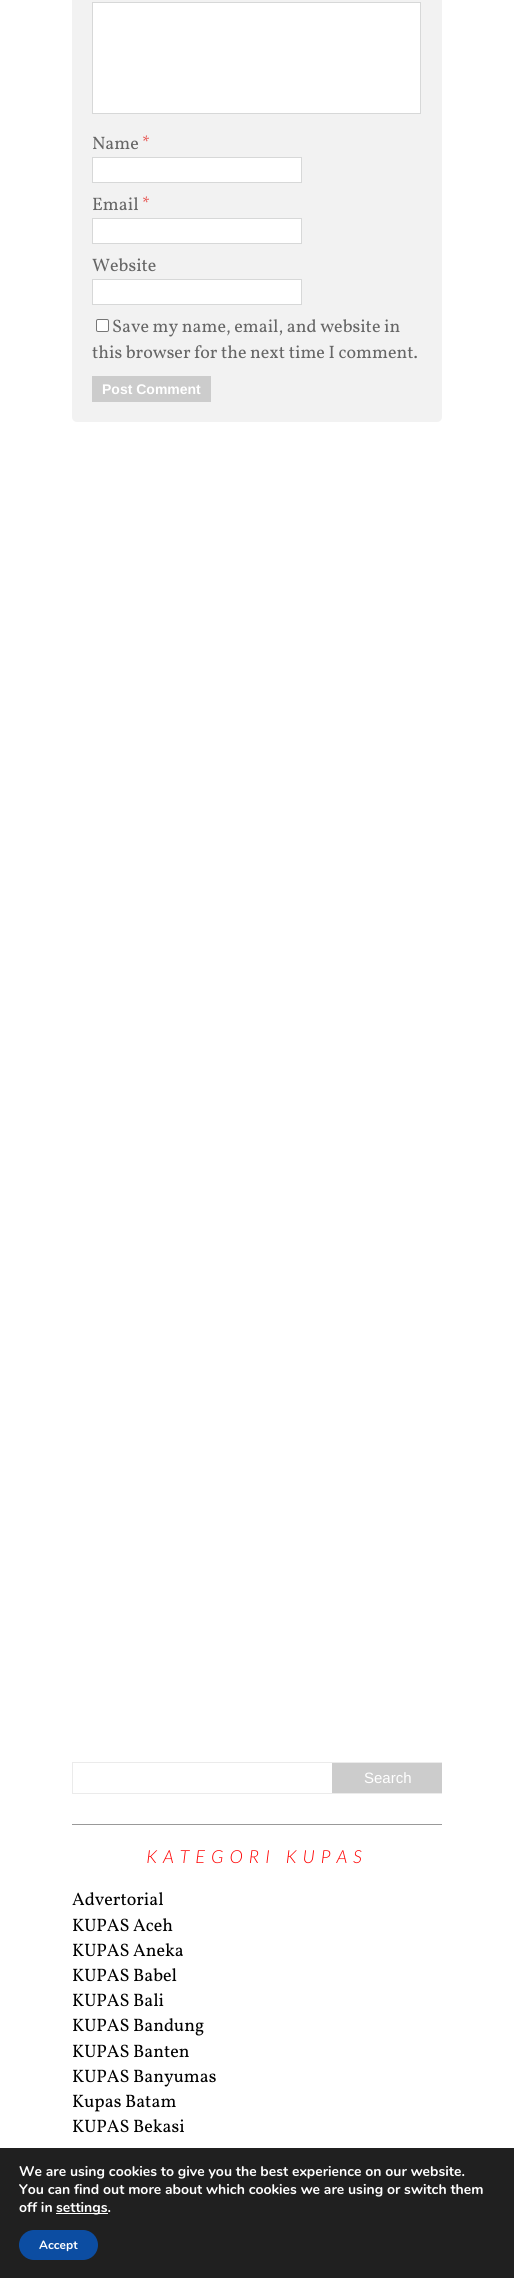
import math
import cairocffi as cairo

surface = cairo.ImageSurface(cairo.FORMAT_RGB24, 514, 2278)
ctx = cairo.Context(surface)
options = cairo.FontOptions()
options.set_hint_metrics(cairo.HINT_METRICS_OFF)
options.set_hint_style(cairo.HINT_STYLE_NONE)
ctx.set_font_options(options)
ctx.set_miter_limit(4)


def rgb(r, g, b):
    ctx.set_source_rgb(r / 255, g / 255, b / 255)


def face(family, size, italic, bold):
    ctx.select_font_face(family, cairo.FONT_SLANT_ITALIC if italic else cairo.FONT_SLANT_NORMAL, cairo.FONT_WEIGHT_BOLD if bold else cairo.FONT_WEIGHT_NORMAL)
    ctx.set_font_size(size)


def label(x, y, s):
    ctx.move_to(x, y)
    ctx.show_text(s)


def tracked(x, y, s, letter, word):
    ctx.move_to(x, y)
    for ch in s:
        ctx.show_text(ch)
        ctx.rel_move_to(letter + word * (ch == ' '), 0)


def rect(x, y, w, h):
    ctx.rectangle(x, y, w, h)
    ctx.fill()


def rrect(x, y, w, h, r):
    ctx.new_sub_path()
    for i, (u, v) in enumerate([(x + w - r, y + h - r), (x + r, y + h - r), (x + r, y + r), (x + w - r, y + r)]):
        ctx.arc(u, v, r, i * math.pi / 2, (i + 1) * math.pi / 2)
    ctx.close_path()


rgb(255, 255, 255)
ctx.paint()
rgb(242, 242, 242)
rrect(72, -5, 370, 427, 5)
ctx.fill()
rgb(255, 255, 255)
ctx.rectangle(92.5, 2.5, 328, 111)
ctx.fill_preserve()
rgb(215, 216, 216)
ctx.set_line_width(1)
ctx.stroke()
face('Vollkorn', 18, 0, 0)
rgb(102, 102, 102)
label(92, 149, 'Name')
rgb(230, 73, 70)
label(142, 149, '*')
rgb(255, 255, 255)
ctx.rectangle(92.5, 157.5, 209, 25)
ctx.fill_preserve()
rgb(215, 216, 216)
ctx.stroke()
rgb(102, 102, 102)
label(92, 210, 'Email')
rgb(230, 73, 70)
label(142, 210, '*')
rgb(255, 255, 255)
ctx.rectangle(92.5, 218.5, 209, 25)
ctx.fill_preserve()
rgb(215, 216, 216)
ctx.stroke()
rgb(102, 102, 102)
label(92, 271, 'Website')
rgb(255, 255, 255)
ctx.rectangle(92.5, 279.5, 209, 25)
ctx.fill_preserve()
rgb(215, 216, 216)
ctx.stroke()
rgb(255, 255, 255)
rrect(96.5, 319.5, 12, 12, 1.5)
ctx.fill_preserve()
rgb(118, 118, 118)
ctx.stroke()
rgb(102, 102, 102)
label(112, 332, 'Save my name, email, and website in')
label(92, 358, 'this browser for the next time I comment.')
rgb(204, 204, 204)
rect(92, 376, 119, 26)
face('Liberation Sans', 14, 0, 1)
rgb(255, 255, 255)
label(102, 394, 'Post Comment')
ctx.save()
ctx.rectangle(72, 1762, 370, 32)
ctx.clip()
ctx.rectangle(72.5, 1762.5, 371, 31)
rgb(235, 235, 235)
ctx.stroke()
ctx.restore()
rgb(204, 204, 204)
rect(332, 1763, 110, 30)
face('Liberation Sans', 15, 0, 0)
rgb(255, 255, 255)
label(364, 1783, 'Search')
rgb(153, 153, 153)
rect(72, 1824, 370, 1)
face('Lato Light', 18, 1, 0)
rgb(255, 0, 0)
tracked(146, 1863, 'KATEGORI KUPAS', 6, 0)
face('Vollkorn', 18, 0, 0)
rgb(0, 0, 0)
label(72, 1905, 'Advertorial')
label(72, 1931, 'KUPAS Aceh')
label(72, 1956, 'KUPAS Aneka')
label(72, 1981, 'KUPAS Babel')
label(72, 2006, 'KUPAS Bali')
label(72, 2031, 'KUPAS Bandung')
label(72, 2057, 'KUPAS Banten')
label(72, 2082, 'KUPAS Banyumas')
label(72, 2107, 'Kupas Batam')
label(72, 2132, 'KUPAS Bekasi')
rgb(32, 32, 32)
rect(0, 2148, 514, 130)
face('Nunito', 14, 0, 1)
rgb(255, 255, 255)
label(19, 2176, 'We are using cookies to give you the best experience on our website.')
label(19, 2194, 'You can find out more about which cookies we are using or switch them')
label(19, 2212, 'off in')
rect(56, 2213, 52, 1)
label(56, 2212, 'settings.')
rgb(12, 77, 162)
rrect(19, 2230, 79, 30, 15)
ctx.fill()
face('Nunito', 12, 0, 1)
rgb(255, 255, 255)
label(39, 2249, 'Accept')
surface.write_to_png('render.png')
